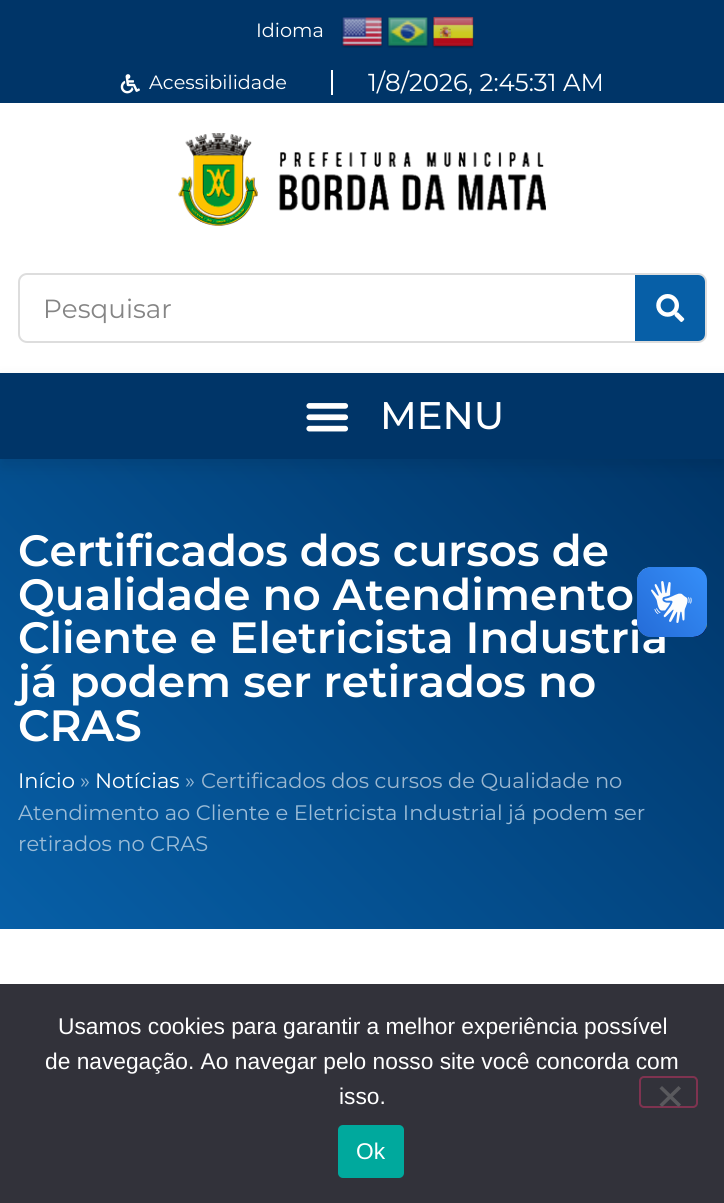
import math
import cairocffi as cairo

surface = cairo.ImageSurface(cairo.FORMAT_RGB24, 724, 1203)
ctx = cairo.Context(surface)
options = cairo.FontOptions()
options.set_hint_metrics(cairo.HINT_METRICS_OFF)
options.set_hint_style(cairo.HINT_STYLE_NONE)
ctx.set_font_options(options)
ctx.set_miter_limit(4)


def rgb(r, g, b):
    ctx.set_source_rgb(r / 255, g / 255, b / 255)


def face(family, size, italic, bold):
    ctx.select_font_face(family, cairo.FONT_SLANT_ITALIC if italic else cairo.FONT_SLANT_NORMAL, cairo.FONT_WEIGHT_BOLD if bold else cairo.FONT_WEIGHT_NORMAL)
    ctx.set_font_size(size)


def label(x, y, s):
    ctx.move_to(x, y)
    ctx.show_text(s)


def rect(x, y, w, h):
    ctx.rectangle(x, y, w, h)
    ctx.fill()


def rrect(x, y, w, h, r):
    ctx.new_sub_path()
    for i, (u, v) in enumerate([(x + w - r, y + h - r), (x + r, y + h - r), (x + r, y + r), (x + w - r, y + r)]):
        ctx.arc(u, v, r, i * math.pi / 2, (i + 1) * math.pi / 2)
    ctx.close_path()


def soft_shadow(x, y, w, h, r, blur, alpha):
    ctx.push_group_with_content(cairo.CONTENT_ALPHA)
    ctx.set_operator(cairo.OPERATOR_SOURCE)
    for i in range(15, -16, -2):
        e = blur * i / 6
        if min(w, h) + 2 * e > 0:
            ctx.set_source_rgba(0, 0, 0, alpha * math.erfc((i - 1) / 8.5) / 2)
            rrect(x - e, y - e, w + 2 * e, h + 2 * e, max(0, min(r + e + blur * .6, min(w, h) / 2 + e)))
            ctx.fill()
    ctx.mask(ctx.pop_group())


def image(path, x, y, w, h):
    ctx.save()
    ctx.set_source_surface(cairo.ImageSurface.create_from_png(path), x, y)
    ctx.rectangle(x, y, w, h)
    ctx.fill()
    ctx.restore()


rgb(255, 255, 255)
ctx.paint()
rgb(0, 53, 104)
rect(0, 0, 724, 103)
face('Montserrat', 19.25, 0, 0)
rgb(255, 255, 255)
label(256, 37, 'Idioma')
image('image0.png', 341, 16, 42, 32)
image('image1.png', 387, 16, 42, 32)
image('image2.png', 432, 16, 42, 33)
image('image3.png', 120, 74, 20, 20)
label(149, 89, 'Acessibilidade')
rect(331, 70, 2, 25)
face('Montserrat', 24.5, 0, 0)
label(368, 91, '1/8/2026, 2:45:31 AM')
image('image4.png', 178, 133, 368, 93)
rrect(19, 274, 687, 68, 8)
rgb(221, 221, 221)
ctx.stroke()
face('Montserrat', 26.25, 0, 0)
rgb(133, 133, 133)
label(43, 318, 'Pesquisar')
rgb(7, 95, 167)
ctx.new_path()
ctx.move_to(635, 275)
ctx.line_to(698, 275)
ctx.curve_to(702, 275, 705, 278, 705, 282)
ctx.line_to(705, 334)
ctx.curve_to(705, 338, 702, 341, 698, 341)
ctx.line_to(635, 341)
ctx.close_path()
ctx.fill()
image('image5.png', 656, 294, 29, 28)
gradient = cairo.LinearGradient(63, 993, 661, 395)
gradient.add_color_stop_rgba(0, 0.027, 0.373, 0.655, 1)
gradient.add_color_stop_rgba(1, 0, 0.208, 0.408, 1)
ctx.set_source(gradient)
rect(0, 459, 724, 470)
rgb(0, 0, 0)
soft_shadow(0, 382, 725, 85, 0, 9, 0.1)
rgb(0, 53, 104)
rect(0, 373, 724, 86)
image('image6.png', 306, 403, 43, 29)
face('Montserrat Medium', 38.5, 0, 0)
rgb(255, 255, 255)
label(380, 429, 'MENU')
face('Montserrat SemiBold', 43.75, 0, 0)
label(18, 566, 'Certificados dos cursos de')
label(18, 610, 'Qualidade no Atendimento')
label(18, 653, 'Cliente e Eletricista Industria')
label(18, 697, 'já podem ser retirados no')
label(18, 741, 'CRAS')
face('Montserrat', 21, 0, 0)
label(18, 788, 'Início')
rgb(155, 188, 215)
label(80, 788, '»')
rgb(255, 255, 255)
label(95, 788, 'Notícias')
rgb(155, 188, 215)
label(185, 788, '»')
rgb(155, 183, 208)
label(201, 788, 'Certificados dos cursos de Qualidade no')
rgb(155, 188, 215)
label(18, 820, 'Atendimento ao Cliente e Eletricista Industrial já podem ser')
label(18, 851, 'retirados no CRAS')
image('image7.png', 637, 567, 70, 70)
image('image8.png', 637, 567, 70, 70)
rgb(50, 50, 58)
rect(0, 984, 724, 219)
face('Liberation Sans', 22.75, 0, 0)
rgb(255, 255, 255)
label(58, 1034, 'Usamos cookies para garantir a melhor experiência possível')
label(45, 1069, 'de navegação. Ao navegar pelo nosso site você concorda com')
label(339, 1104, 'isso.')
rrect(640, 1077, 57, 30, 4)
rgb(127, 51, 80)
ctx.stroke()
rgb(89, 89, 93)
ctx.new_path()
ctx.move_to(678.5, 1086)
ctx.line_to(681, 1088.5)
ctx.line_to(662, 1107)
ctx.line_to(659.5, 1104.5)
ctx.close_path()
ctx.fill()
ctx.new_path()
ctx.move_to(659.5, 1088.5)
ctx.line_to(662, 1086)
ctx.line_to(681, 1104.5)
ctx.line_to(678.5, 1107)
ctx.close_path()
ctx.fill()
rgb(0, 169, 157)
rrect(338, 1125, 66, 53, 5)
ctx.fill()
rgb(255, 255, 255)
label(356, 1159, 'Ok')
surface.write_to_png('render.png')
